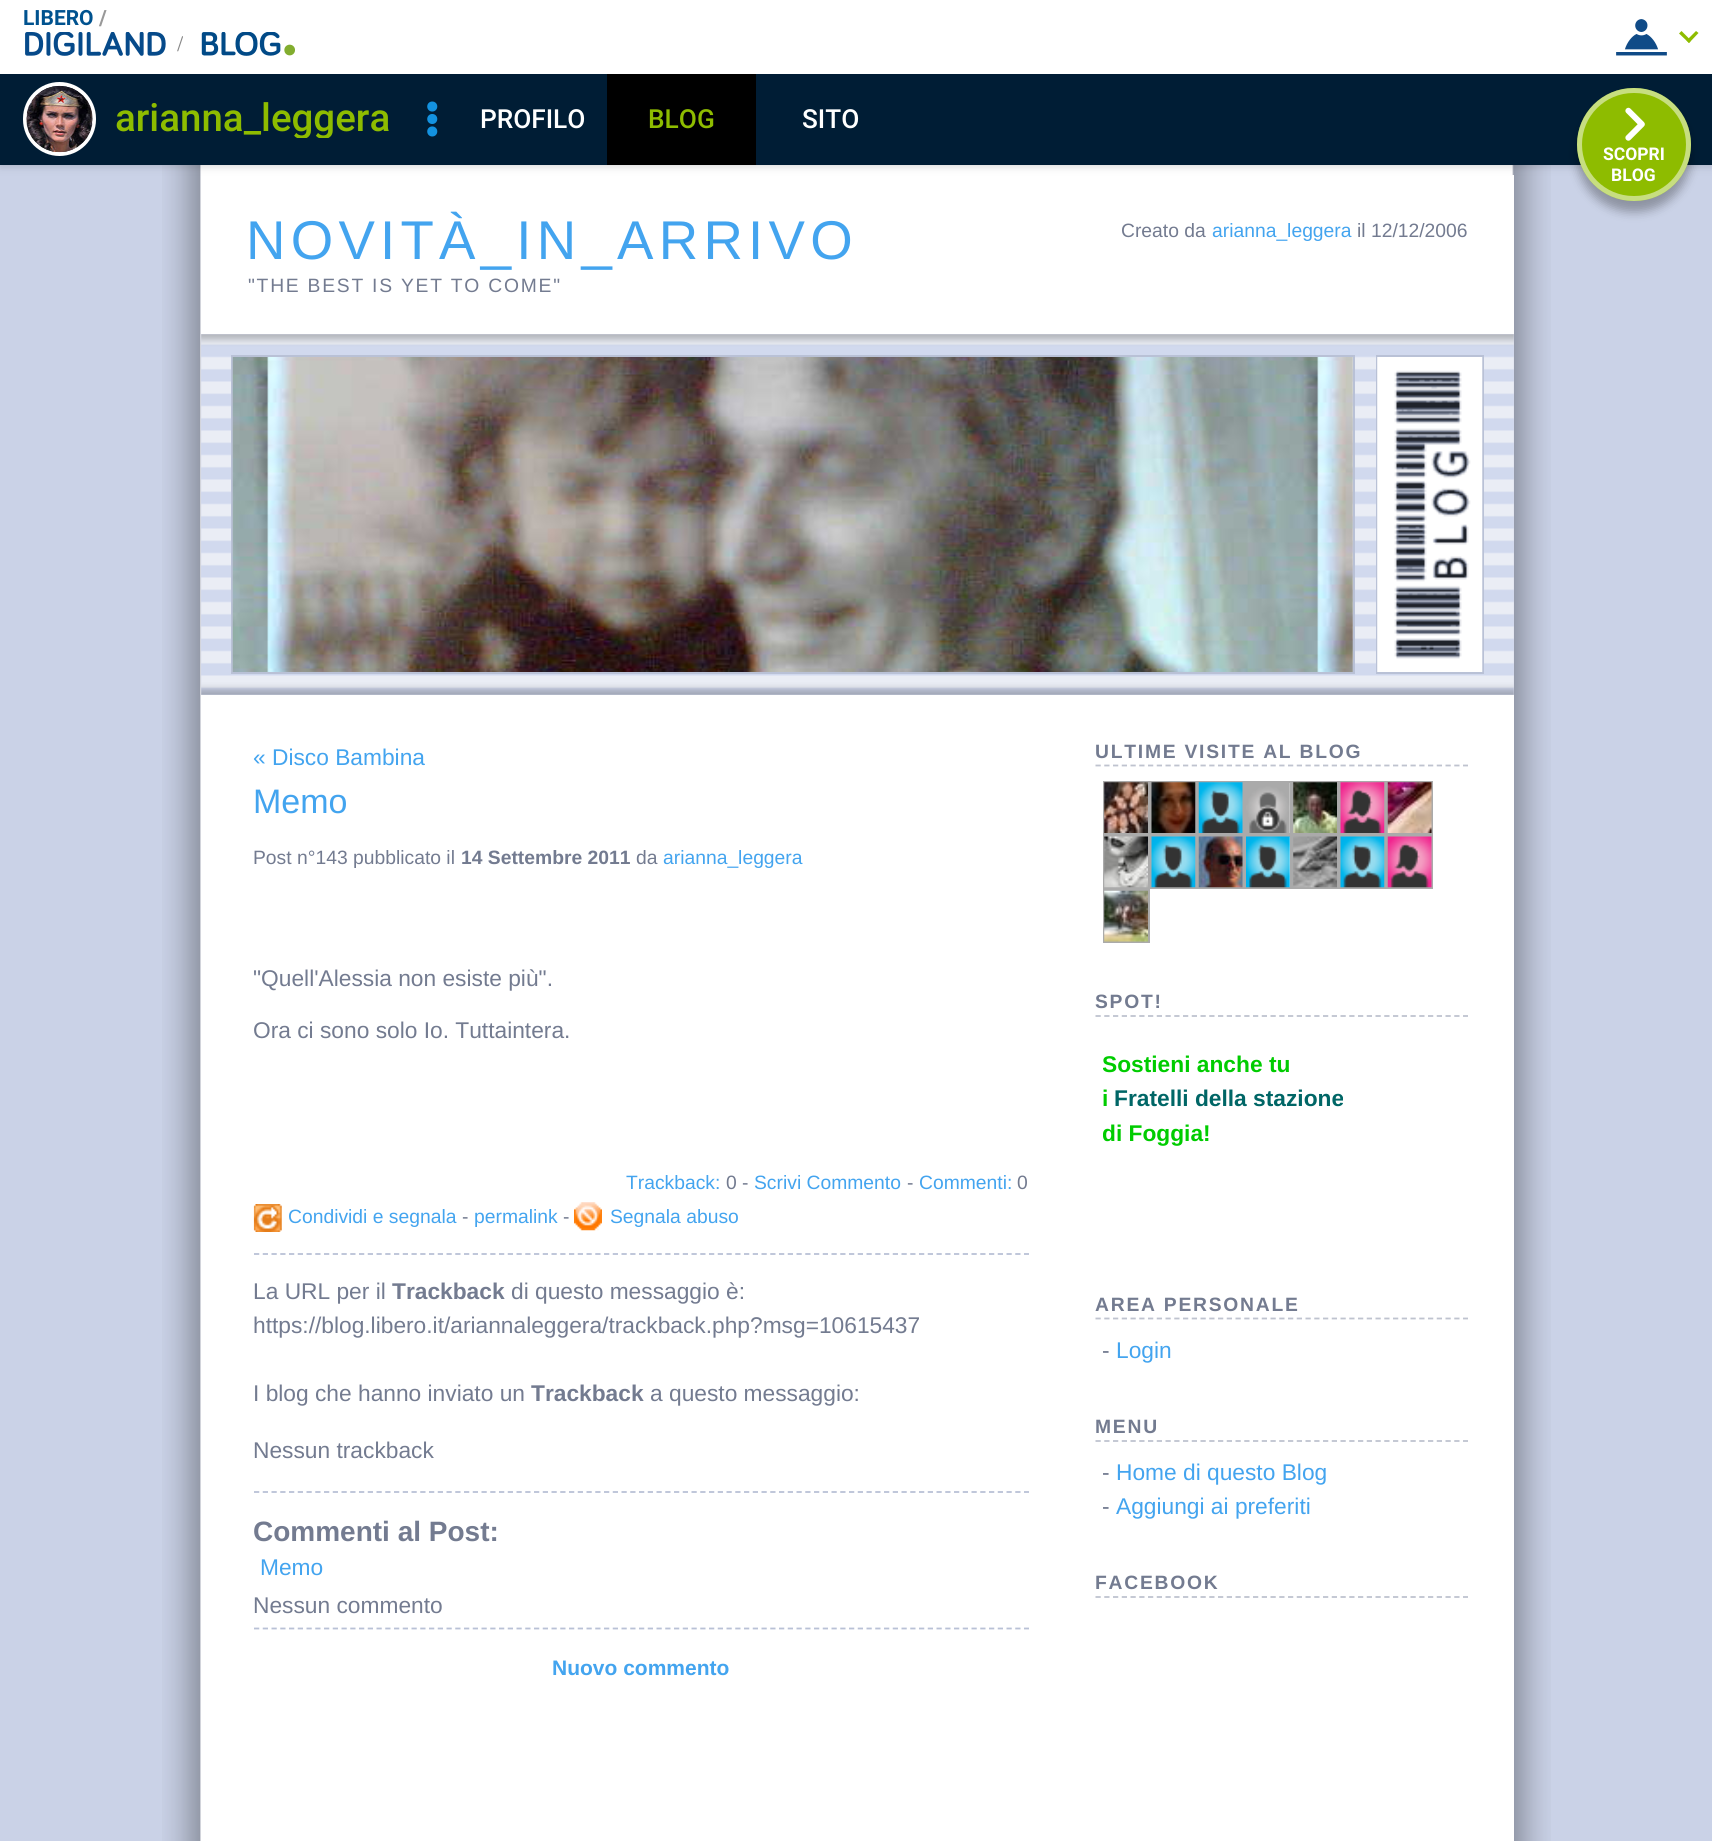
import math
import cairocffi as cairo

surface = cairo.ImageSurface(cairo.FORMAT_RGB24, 1712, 1841)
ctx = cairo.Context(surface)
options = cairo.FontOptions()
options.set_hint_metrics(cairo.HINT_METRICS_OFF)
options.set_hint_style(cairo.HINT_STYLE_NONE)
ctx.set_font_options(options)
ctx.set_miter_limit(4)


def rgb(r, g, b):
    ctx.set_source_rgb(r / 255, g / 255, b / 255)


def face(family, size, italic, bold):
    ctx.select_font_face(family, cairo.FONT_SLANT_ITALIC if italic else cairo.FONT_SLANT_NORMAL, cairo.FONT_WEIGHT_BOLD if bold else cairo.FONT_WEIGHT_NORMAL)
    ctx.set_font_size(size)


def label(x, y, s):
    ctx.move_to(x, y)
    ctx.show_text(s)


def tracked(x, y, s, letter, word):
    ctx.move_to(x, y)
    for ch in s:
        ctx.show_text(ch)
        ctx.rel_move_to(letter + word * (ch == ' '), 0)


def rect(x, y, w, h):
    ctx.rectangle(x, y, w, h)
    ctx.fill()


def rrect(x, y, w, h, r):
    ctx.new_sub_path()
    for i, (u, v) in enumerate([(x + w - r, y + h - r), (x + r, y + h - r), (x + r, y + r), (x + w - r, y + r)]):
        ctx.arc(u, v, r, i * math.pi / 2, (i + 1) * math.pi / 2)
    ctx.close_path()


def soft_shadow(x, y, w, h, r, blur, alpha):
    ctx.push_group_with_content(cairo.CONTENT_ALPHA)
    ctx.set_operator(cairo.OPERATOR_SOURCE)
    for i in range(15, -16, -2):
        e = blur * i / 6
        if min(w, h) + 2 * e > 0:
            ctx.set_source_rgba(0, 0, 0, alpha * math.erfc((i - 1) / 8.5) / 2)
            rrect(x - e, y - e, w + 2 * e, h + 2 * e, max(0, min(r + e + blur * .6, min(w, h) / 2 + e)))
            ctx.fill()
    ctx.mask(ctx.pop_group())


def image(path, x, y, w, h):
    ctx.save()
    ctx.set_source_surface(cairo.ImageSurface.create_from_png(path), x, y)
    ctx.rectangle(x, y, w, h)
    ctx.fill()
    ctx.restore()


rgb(202, 210, 231)
ctx.paint()
image('image0.png', 162, 165, 1389, 1676)
rgb(255, 255, 255)
rect(1512, 175, 2, 1666)
rgb(0, 0, 0)
soft_shadow(0, 0, 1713, 165, 0, 5, 0.2)
rgb(255, 255, 255)
rect(0, 0, 1712, 74)
face('Roboto', 21, 0, 1)
rgb(0, 82, 143)
label(23, 25, 'LIBERO')
rgb(153, 153, 153)
label(99, 25, '/')
image('image1.png', 1616, 19, 51, 37)
rgb(142, 188, 0)
ctx.new_path()
ctx.move_to(1696, 31)
ctx.line_to(1698.5, 33)
ctx.line_to(1689, 43)
ctx.line_to(1686.5, 40.5)
ctx.close_path()
ctx.fill()
ctx.new_path()
ctx.move_to(1681.5, 31)
ctx.line_to(1691, 40.5)
ctx.line_to(1689, 43)
ctx.line_to(1679, 33.5)
ctx.close_path()
ctx.fill()
image('image2.png', 25, 32, 141, 24)
image('image3.png', 177, 36, 6, 16)
image('image4.png', 201, 32, 94, 24)
rgb(0, 29, 53)
rect(0, 74, 1712, 91)
rrect(25, 84, 69, 70, 34.5)
rgb(255, 255, 255)
ctx.set_line_width(4)
ctx.stroke()
image('image5.png', 26, 85, 67, 68)
ctx.save()
ctx.rectangle(116, 100, 274, 38)
ctx.clip()
face('Roboto Medium', 38.5, 0, 0)
rgb(142, 188, 0)
label(115, 131, 'arianna_leggera')
ctx.restore()
image('image6.png', 427, 101, 11, 36)
face('Roboto Medium', 26.25, 0, 0)
label(480, 128, 'PROFILO')
rgb(0, 0, 0)
rect(607, 74, 149, 91)
rgb(142, 188, 0)
label(648, 128, 'BLOG')
rgb(255, 255, 255)
label(802, 128, 'SITO')
rgb(0, 0, 0)
soft_shadow(1577, 98, 114, 114, 57, 5, 0.3)
rgb(142, 188, 0)
rrect(1577, 88, 114, 113, 56.5)
ctx.fill()
rrect(1579.5, 90.5, 109, 108, 54)
ctx.set_source_rgba(1, 1, 1, 0.5)
ctx.set_line_width(5)
ctx.stroke()
image('image7.png', 1625, 107, 20, 34)
face('Roboto', 17.5, 0, 1)
rgb(255, 255, 255)
label(1603, 160, 'SCOPRI')
label(1611, 181, 'BLOG')
face('Liberation Sans', 54.6, 0, 0)
rgb(67, 164, 239)
tracked(246, 259, 'NOVITÀ_IN_ARRIVO', 5.25, 0)
face('Liberation Sans', 19.3, 0, 0)
rgb(115, 123, 144)
label(1121, 237, 'Creato da')
rgb(67, 164, 239)
label(1212, 237, 'arianna_leggera')
rgb(115, 123, 144)
label(1357, 237, 'il 12/12/2006')
tracked(248, 292, '"THE BEST IS YET TO COME"', 1.75, 0)
rgb(215, 220, 233)
rect(201, 334, 1313, 361)
image('image8.png', 201, 334, 1313, 361)
ctx.rectangle(232, 356, 1122, 317)
rgb(185, 193, 214)
ctx.set_line_width(2)
ctx.stroke()
image('image9.png', 232, 357, 1121, 315)
ctx.rectangle(1377, 356, 106, 317)
ctx.stroke()
image('image10.png', 1377, 357, 106, 315)
face('Liberation Sans', 22.75, 0, 0)
rgb(67, 164, 239)
label(253, 765, '« Disco Bambina')
face('Liberation Sans', 34, 0, 0)
label(253, 813, 'Memo')
face('Liberation Sans', 19.3, 0, 0)
rgb(115, 123, 144)
label(253, 864, 'Post n°143 pubblicato il')
face('Liberation Sans', 19.3, 0, 1)
label(461, 864, '14 Settembre 2011')
face('Liberation Sans', 19.3, 0, 0)
label(636, 864, 'da')
rgb(67, 164, 239)
label(663, 864, 'arianna_leggera')
face('Liberation Sans', 22.75, 0, 0)
rgb(115, 123, 144)
label(253, 986, '"Quell\'Alessia non esiste più".')
label(253, 1038, 'Ora ci sono solo Io. Tuttaintera.')
face('Liberation Sans', 19.3, 0, 0)
rgb(67, 164, 239)
label(626, 1189, 'Trackback:')
rgb(115, 123, 144)
label(726, 1189, '0 -')
rgb(67, 164, 239)
label(754, 1189, 'Scrivi Commento')
rgb(115, 123, 144)
label(907, 1189, '-')
rgb(67, 164, 239)
label(919, 1189, 'Commenti:')
rgb(115, 123, 144)
label(1017, 1189, '0')
image('image11.png', 253, 1204, 29, 28)
rgb(67, 164, 239)
label(288, 1223, 'Condividi e segnala')
rgb(115, 123, 144)
label(462, 1223, '-')
rgb(67, 164, 239)
label(474, 1223, 'permalink')
rgb(115, 123, 144)
label(563, 1223, '-')
image('image12.png', 574, 1202, 28, 29)
rgb(67, 164, 239)
label(610, 1223, 'Segnala abuso')
ctx.new_path()
ctx.move_to(254, 1254)
ctx.line_to(1029, 1254)
rgb(185, 193, 214)
ctx.set_line_width(1.8)
ctx.set_dash([5.25, 3.5])
ctx.stroke()
face('Liberation Sans', 22.75, 0, 0)
rgb(115, 123, 144)
label(253, 1299, 'La URL per il')
face('Liberation Sans', 22.75, 0, 1)
label(392, 1299, 'Trackback')
face('Liberation Sans', 22.75, 0, 0)
label(511, 1299, 'di questo messaggio è:')
label(253, 1333, 'https://blog.libero.it/ariannaleggera/trackback.php?msg=10615437')
label(253, 1401, 'I blog che hanno inviato un')
face('Liberation Sans', 22.75, 0, 1)
label(531, 1401, 'Trackback')
face('Liberation Sans', 22.75, 0, 0)
label(650, 1401, 'a questo messaggio:')
label(253, 1458, 'Nessun trackback')
ctx.new_path()
ctx.move_to(254, 1492)
ctx.line_to(1029, 1492)
rgb(185, 193, 214)
ctx.stroke()
face('Liberation Sans', 28, 0, 1)
rgb(115, 123, 144)
label(253, 1541, 'Commenti al Post:')
face('Liberation Sans', 22.75, 0, 0)
rgb(67, 164, 239)
label(260, 1575, 'Memo')
rgb(115, 123, 144)
label(253, 1613, 'Nessun commento')
ctx.new_path()
ctx.move_to(254, 1628.5)
ctx.line_to(1029, 1628.5)
rgb(185, 193, 214)
ctx.stroke()
face('Liberation Sans', 21, 0, 1)
rgb(67, 164, 239)
label(552, 1675, 'Nuovo commento')
ctx.new_path()
ctx.move_to(1095.5, 765.5)
ctx.line_to(1468, 765.5)
rgb(191, 195, 207)
ctx.stroke()
face('Liberation Sans', 19.3, 0, 1)
rgb(115, 123, 144)
tracked(1095, 758, 'ULTIME VISITE AL BLOG', 1.75, 0)
ctx.rectangle(1104, 782, 45, 52)
rgb(170, 170, 170)
ctx.set_line_width(2)
ctx.set_dash([])
ctx.stroke()
ctx.rectangle(1151, 782, 45, 52)
ctx.stroke()
ctx.rectangle(1198, 782, 45, 52)
ctx.stroke()
ctx.rectangle(1245, 782, 46, 52)
ctx.stroke()
ctx.rectangle(1293, 782, 45, 52)
ctx.stroke()
ctx.rectangle(1340, 782, 45, 52)
ctx.stroke()
ctx.rectangle(1387, 782, 45, 52)
ctx.stroke()
image('image13.png', 1104, 782, 44, 51)
image('image14.png', 1151, 782, 45, 51)
image('image15.png', 1198, 782, 45, 51)
image('image16.png', 1246, 783, 44, 50)
image('image17.png', 1293, 782, 44, 51)
image('image18.png', 1340, 782, 45, 51)
image('image19.png', 1387, 782, 45, 51)
ctx.rectangle(1104, 836, 45, 52)
ctx.stroke()
ctx.rectangle(1151, 836, 45, 52)
ctx.stroke()
ctx.rectangle(1198, 836, 45, 52)
ctx.stroke()
ctx.rectangle(1245, 836, 46, 52)
ctx.stroke()
ctx.rectangle(1293, 836, 45, 52)
ctx.stroke()
ctx.rectangle(1340, 836, 45, 52)
ctx.stroke()
ctx.rectangle(1387, 836, 45, 52)
ctx.stroke()
image('image20.png', 1104, 836, 44, 52)
image('image21.png', 1151, 836, 45, 52)
image('image22.png', 1198, 836, 45, 52)
image('image23.png', 1246, 836, 44, 52)
image('image24.png', 1293, 836, 44, 52)
image('image21.png', 1340, 836, 45, 52)
image('image25.png', 1387, 836, 45, 52)
ctx.rectangle(1104, 890, 45, 52)
ctx.stroke()
image('image26.png', 1104, 890, 44, 52)
ctx.new_path()
ctx.move_to(1095.5, 1016)
ctx.line_to(1468, 1016)
rgb(191, 195, 207)
ctx.set_line_width(1.8)
ctx.set_dash([5.25, 3.5])
ctx.stroke()
rgb(115, 123, 144)
tracked(1095, 1008, 'SPOT!', 1.75, 0)
ctx.save()
ctx.rectangle(1103, 1031, 358, 217)
ctx.clip()
face('Liberation Sans', 22.75, 0, 1)
rgb(0, 204, 0)
label(1102, 1072, 'Sostieni anche tu')
ctx.restore()
face('Liberation Sans', 22.75, 0, 1)
rgb(0, 204, 0)
label(1102, 1106, 'i')
rgb(0, 102, 102)
label(1114, 1106, 'Fratelli della stazione')
ctx.save()
ctx.rectangle(1103, 1031, 358, 217)
ctx.clip()
rgb(0, 204, 0)
label(1102, 1141, 'di Foggia!')
ctx.restore()
ctx.new_path()
ctx.move_to(1095.5, 1318.5)
ctx.line_to(1468, 1318.5)
rgb(191, 195, 207)
ctx.stroke()
face('Liberation Sans', 19.3, 0, 1)
rgb(115, 123, 144)
tracked(1095, 1311, 'AREA PERSONALE', 1.75, 0)
face('Liberation Sans', 22.75, 0, 0)
label(1102, 1358, '-')
rgb(67, 164, 239)
label(1116, 1358, 'Login')
ctx.new_path()
ctx.move_to(1095.5, 1441)
ctx.line_to(1468, 1441)
rgb(191, 195, 207)
ctx.stroke()
face('Liberation Sans', 19.3, 0, 1)
rgb(115, 123, 144)
tracked(1095, 1433, 'MENU', 1.75, 0)
face('Liberation Sans', 22.75, 0, 0)
label(1102, 1480, '-')
rgb(67, 164, 239)
label(1116, 1480, 'Home di questo Blog')
rgb(115, 123, 144)
label(1102, 1514, '-')
rgb(67, 164, 239)
label(1116, 1514, 'Aggiungi ai preferiti')
ctx.new_path()
ctx.move_to(1095.5, 1597)
ctx.line_to(1468, 1597)
rgb(191, 195, 207)
ctx.stroke()
face('Liberation Sans', 19.3, 0, 1)
rgb(115, 123, 144)
tracked(1095, 1589, 'FACEBOOK', 1.75, 0)
surface.write_to_png('render.png')
